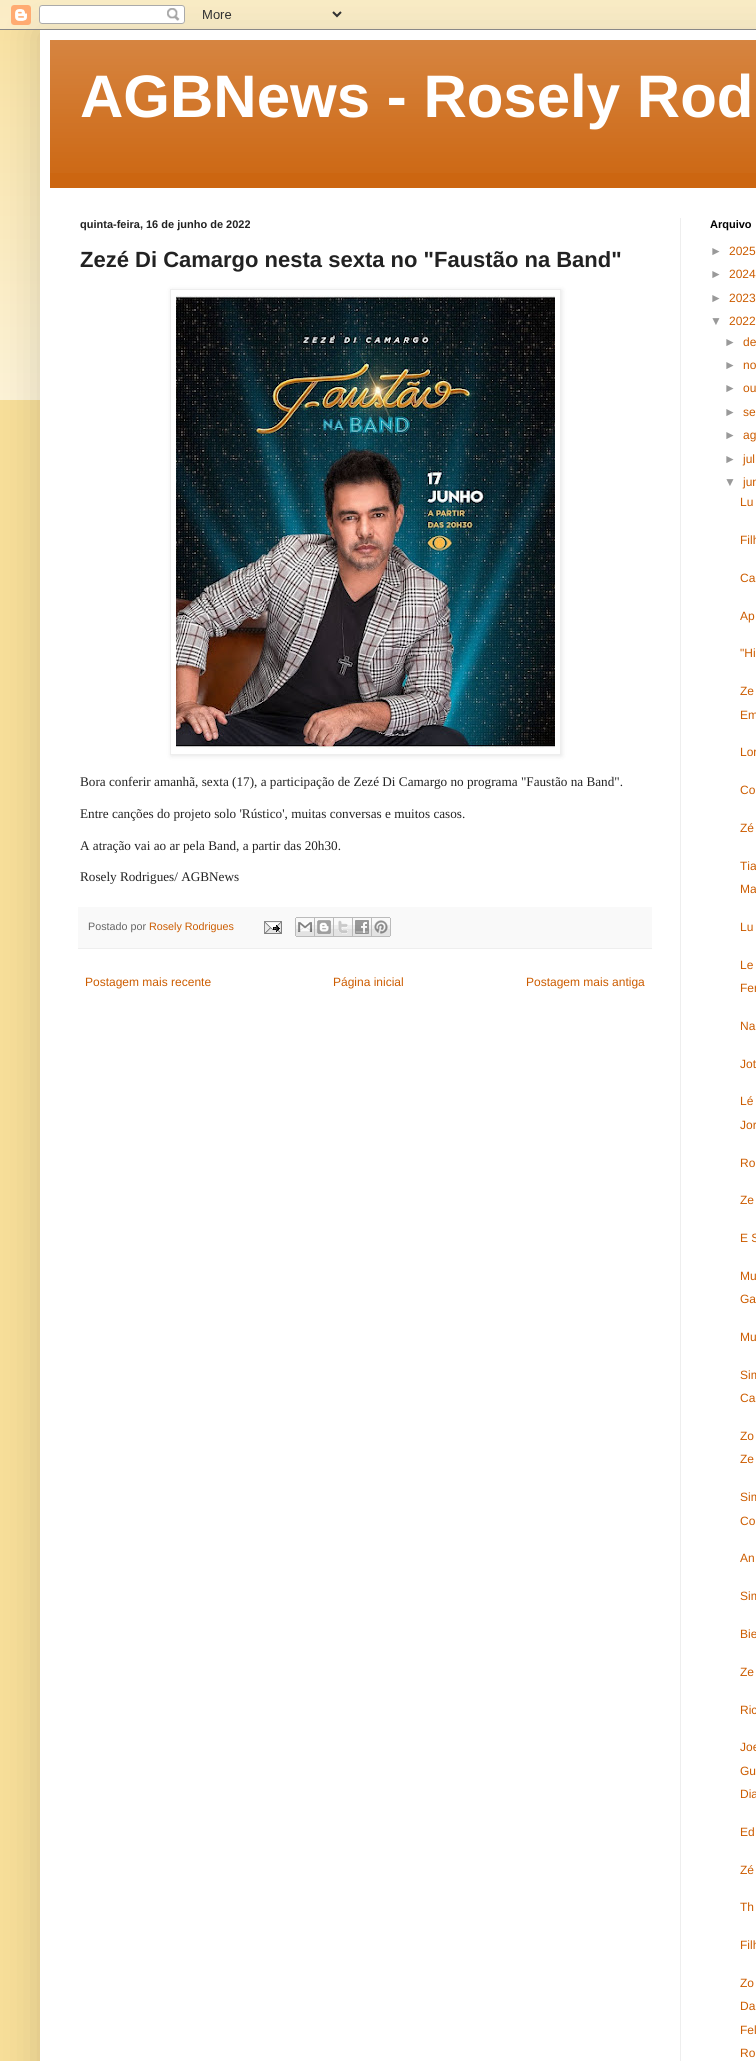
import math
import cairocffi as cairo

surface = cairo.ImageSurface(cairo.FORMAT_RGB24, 756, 2061)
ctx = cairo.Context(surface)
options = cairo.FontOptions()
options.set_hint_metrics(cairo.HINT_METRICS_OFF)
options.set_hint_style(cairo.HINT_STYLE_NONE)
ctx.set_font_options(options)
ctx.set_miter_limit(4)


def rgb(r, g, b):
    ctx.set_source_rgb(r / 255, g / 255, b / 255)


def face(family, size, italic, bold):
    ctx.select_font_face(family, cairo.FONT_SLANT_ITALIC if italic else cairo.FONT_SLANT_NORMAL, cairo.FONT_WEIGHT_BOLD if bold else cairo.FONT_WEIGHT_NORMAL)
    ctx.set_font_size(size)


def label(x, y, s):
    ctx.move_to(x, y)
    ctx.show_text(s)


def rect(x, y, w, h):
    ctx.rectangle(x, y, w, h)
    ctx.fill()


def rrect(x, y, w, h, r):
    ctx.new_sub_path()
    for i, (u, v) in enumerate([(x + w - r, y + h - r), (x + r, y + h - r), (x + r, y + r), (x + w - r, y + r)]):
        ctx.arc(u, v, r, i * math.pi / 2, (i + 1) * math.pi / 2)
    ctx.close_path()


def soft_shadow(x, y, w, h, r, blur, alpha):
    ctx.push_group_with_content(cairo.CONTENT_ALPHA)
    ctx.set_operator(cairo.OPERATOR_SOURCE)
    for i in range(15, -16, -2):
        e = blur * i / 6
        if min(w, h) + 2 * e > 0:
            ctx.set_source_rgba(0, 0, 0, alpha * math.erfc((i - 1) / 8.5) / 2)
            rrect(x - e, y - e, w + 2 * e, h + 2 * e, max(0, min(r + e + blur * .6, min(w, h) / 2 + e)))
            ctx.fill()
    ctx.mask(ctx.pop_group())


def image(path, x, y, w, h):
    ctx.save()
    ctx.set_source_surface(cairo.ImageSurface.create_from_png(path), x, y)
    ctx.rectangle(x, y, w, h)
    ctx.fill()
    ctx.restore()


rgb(247, 222, 153)
ctx.paint()
image('image0.png', 0, 0, 756, 400)
rgb(0, 0, 0)
soft_shadow(40, 30, 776, 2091, 0, 20, 0.15)
image('image1.png', 0, 0, 756, 30)
rgb(255, 255, 255)
rect(40, 30, 716, 2031)
rgb(204, 102, 17)
rect(50, 40, 706, 148)
image('image2.png', 50, 40, 706, 133)
face('Liberation Sans', 60, 0, 1)
rgb(255, 255, 255)
label(80, 117, 'AGBNews - Rosely Rod')
rgb(238, 238, 238)
rect(680, 218, 1, 1843)
face('Liberation Sans', 11, 0, 1)
rgb(34, 34, 34)
label(80, 228, 'quinta-feira, 16 de junho de 2022')
face('Liberation Sans', 22, 0, 1)
label(80, 267, 'Zezé Di Camargo nesta sexta no "Faustão na Band"')
ctx.save()
ctx.set_fill_rule(cairo.FILL_RULE_EVEN_ODD)
ctx.new_path()
ctx.move_to(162, 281)
ctx.line_to(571, 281)
ctx.line_to(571, 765)
ctx.line_to(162, 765)
ctx.close_path()
ctx.move_to(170, 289)
ctx.line_to(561, 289)
ctx.line_to(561, 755)
ctx.line_to(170, 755)
ctx.close_path()
ctx.clip()
rgb(0, 0, 0)
soft_shadow(171, 290, 391, 466, 0, 2.5, 0.1)
ctx.restore()
ctx.rectangle(170.5, 289.5, 390, 465)
rgb(238, 238, 238)
ctx.set_line_width(1)
ctx.stroke()
image('image3.png', 176, 295, 379, 454)
face('Liberation Serif', 13.2, 0, 0)
rgb(34, 34, 34)
label(80, 786, 'Bora conferir amanhã, sexta (17), a participação de Zezé Di Camargo no programa "Faustão na Band".')
label(80, 818, 'Entre canções do projeto solo \'Rústico\', muitas conversas e muitos casos.')
label(80, 850, 'A atração vai ao ar pela Band, a partir das 20h30.')
label(80, 881, 'Rosely Rodrigues/ AGBNews')
rgb(249, 249, 249)
rect(78, 907, 574, 41)
rgb(238, 238, 238)
rect(78, 948, 574, 1)
face('Liberation Sans', 10.75, 0, 0)
rgb(102, 102, 102)
label(88, 930, 'Postado por')
rgb(204, 92, 0)
label(149, 930, 'Rosely Rodrigues')
image('image4.png', 264, 921, 18, 13)
image('image5.png', 295, 917, 20, 20)
image('image6.png', 315, 917, 19, 20)
image('image7.png', 334, 917, 19, 20)
image('image8.png', 353, 917, 19, 20)
image('image9.png', 372, 917, 19, 20)
face('Liberation Sans', 12, 0, 0)
label(85, 986, 'Postagem mais recente')
label(333, 986, 'Página inicial')
label(526, 986, 'Postagem mais antiga')
face('Liberation Sans', 11, 0, 1)
rgb(0, 0, 0)
label(710, 228, 'Arquivo')
face('Liberation Sans', 12, 0, 0)
rgb(153, 153, 153)
label(710, 255, '►')
rgb(204, 92, 0)
label(729, 255, '2025')
rgb(153, 153, 153)
label(710, 278, '►')
rgb(204, 92, 0)
label(729, 278, '2024')
rgb(153, 153, 153)
label(710, 302, '►')
rgb(204, 92, 0)
label(729, 302, '2023')
rgb(153, 153, 153)
label(710, 325, '▼')
rgb(204, 92, 0)
label(729, 325, '2022')
rgb(153, 153, 153)
label(724, 346, '►')
rgb(204, 92, 0)
label(743, 346, 'de')
rgb(153, 153, 153)
label(724, 369, '►')
rgb(204, 92, 0)
label(743, 369, 'no')
rgb(153, 153, 153)
label(724, 392, '►')
rgb(204, 92, 0)
label(743, 392, 'ou')
rgb(153, 153, 153)
label(724, 416, '►')
rgb(204, 92, 0)
label(743, 416, 'se')
rgb(153, 153, 153)
label(724, 439, '►')
rgb(204, 92, 0)
label(743, 439, 'ag')
rgb(153, 153, 153)
label(724, 463, '►')
rgb(204, 92, 0)
label(743, 463, 'jul')
rgb(153, 153, 153)
label(724, 486, '▼')
rgb(204, 92, 0)
label(743, 486, 'jun')
label(740, 506, 'Lu')
label(740, 544, 'Filh')
label(740, 582, 'Ca')
label(740, 620, 'Ap')
label(740, 657, '"Hi')
label(740, 695, 'Ze')
label(740, 719, 'Em')
label(740, 756, 'Lor')
label(740, 794, 'Co')
label(740, 832, 'Zé')
label(740, 870, 'Tia')
label(740, 893, 'Ma')
label(740, 931, 'Lu')
label(740, 969, 'Le')
label(740, 992, 'Fer')
label(740, 1030, 'Na')
label(740, 1068, 'Jot')
label(740, 1105, 'Lé')
label(740, 1129, 'Jor')
label(740, 1167, 'Ro')
label(740, 1204, 'Ze')
label(740, 1242, 'E S')
label(740, 1280, 'Mu')
label(740, 1303, 'Ga')
label(740, 1341, 'Mu')
label(740, 1379, 'Sim')
label(740, 1402, 'Ca')
label(740, 1440, 'Zo')
label(740, 1463, 'Ze')
label(740, 1501, 'Sim')
label(740, 1525, 'Co')
label(740, 1562, 'An')
label(740, 1600, 'Sim')
label(740, 1638, 'Bie')
label(740, 1676, 'Ze')
label(740, 1714, 'Ric')
label(740, 1751, 'Joe')
label(740, 1775, 'Gu')
label(740, 1798, 'Dia')
label(740, 1836, 'Ed')
label(740, 1874, 'Zé')
label(740, 1911, 'Th')
label(740, 1949, 'Filh')
label(740, 1987, 'Zo')
label(740, 2010, 'Da')
label(740, 2034, 'Fel')
label(740, 2057, 'Ro')
surface.write_to_png('render.png')
